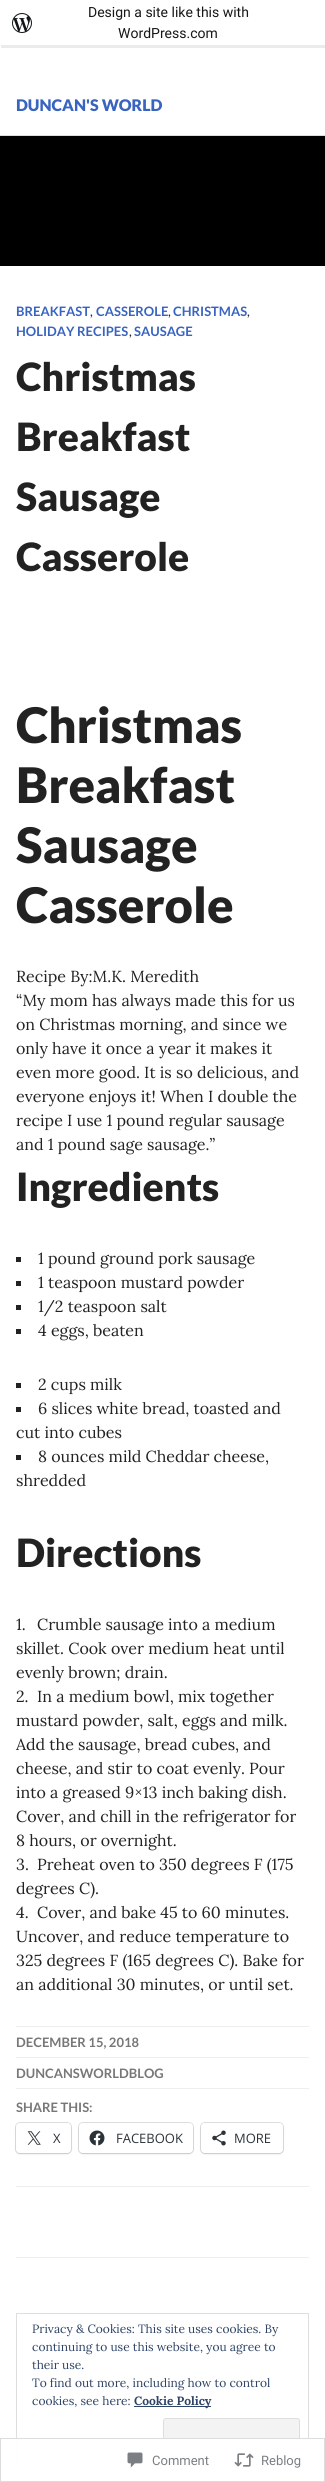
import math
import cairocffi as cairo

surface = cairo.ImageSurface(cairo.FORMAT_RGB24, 325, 2482)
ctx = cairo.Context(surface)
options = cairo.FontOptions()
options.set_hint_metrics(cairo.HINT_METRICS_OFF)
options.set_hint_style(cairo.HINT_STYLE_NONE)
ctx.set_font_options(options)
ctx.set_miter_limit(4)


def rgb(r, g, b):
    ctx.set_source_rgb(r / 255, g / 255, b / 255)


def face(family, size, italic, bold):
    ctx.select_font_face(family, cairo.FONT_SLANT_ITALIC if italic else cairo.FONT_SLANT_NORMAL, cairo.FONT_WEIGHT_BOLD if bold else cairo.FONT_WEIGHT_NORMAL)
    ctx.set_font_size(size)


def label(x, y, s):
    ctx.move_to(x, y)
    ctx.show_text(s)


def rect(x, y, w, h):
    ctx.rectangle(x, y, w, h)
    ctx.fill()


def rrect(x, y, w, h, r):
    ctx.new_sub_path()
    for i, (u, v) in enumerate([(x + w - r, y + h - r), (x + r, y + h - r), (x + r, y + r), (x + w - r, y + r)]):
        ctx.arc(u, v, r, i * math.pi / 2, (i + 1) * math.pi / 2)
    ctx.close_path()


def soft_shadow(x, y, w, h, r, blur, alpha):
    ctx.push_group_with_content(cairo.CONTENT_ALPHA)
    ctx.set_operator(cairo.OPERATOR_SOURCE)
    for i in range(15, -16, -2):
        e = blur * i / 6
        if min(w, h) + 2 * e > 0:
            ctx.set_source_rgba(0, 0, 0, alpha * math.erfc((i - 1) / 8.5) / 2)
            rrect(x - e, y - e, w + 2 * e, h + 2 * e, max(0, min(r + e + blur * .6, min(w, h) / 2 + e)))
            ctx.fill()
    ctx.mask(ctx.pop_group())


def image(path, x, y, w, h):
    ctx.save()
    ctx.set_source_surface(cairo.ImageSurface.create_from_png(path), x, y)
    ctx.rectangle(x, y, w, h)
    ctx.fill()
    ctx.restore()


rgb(255, 255, 255)
ctx.paint()
ctx.set_source_rgba(0, 0, 0, 0.08)
ctx.new_path()
ctx.move_to(1, 45)
ctx.line_to(1, 48)
ctx.line_to(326, 48)
ctx.line_to(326, 3)
ctx.line_to(325, 3)
ctx.line_to(325, 45)
ctx.close_path()
ctx.fill()
image('image0.png', 12, 13, 20, 20)
face('Roboto', 14, 0, 0)
rgb(23, 23, 23)
label(88, 17, 'Design a site like this with')
label(118, 38, 'WordPress.com')
rgb(221, 221, 221)
rect(0, 135, 325, 1)
face('Lato Black', 16, 0, 0)
rgb(56, 99, 193)
label(16, 111, 'DUNCAN\'S WORLD')
rgb(0, 0, 0)
rect(0, 136, 325, 130)
face('Lato', 13, 0, 1)
rgb(56, 99, 193)
label(16, 316, 'BREAKFAST')
face('Lato', 13, 0, 0)
rgb(34, 34, 34)
label(90, 316, ',')
face('Lato', 13, 0, 1)
rgb(56, 99, 193)
label(96, 316, 'CASSEROLE')
face('Lato', 13, 0, 0)
rgb(34, 34, 34)
label(168, 316, ',')
face('Lato', 13, 0, 1)
rgb(56, 99, 193)
label(173, 316, 'CHRISTMAS')
face('Lato', 13, 0, 0)
rgb(34, 34, 34)
label(247, 316, ',')
face('Lato', 13, 0, 1)
rgb(56, 99, 193)
label(16, 336, 'HOLIDAY RECIPES')
face('Lato', 13, 0, 0)
rgb(34, 34, 34)
label(129, 336, ',')
face('Lato', 13, 0, 1)
rgb(56, 99, 193)
label(134, 336, 'SAUSAGE')
face('Lato Black', 39, 0, 0)
rgb(34, 34, 34)
label(16, 391, 'Christmas')
label(16, 451, 'Breakfast')
label(16, 511, 'Sausage')
label(16, 571, 'Casserole')
face('Lato Black', 49, 0, 0)
label(16, 743, 'Christmas')
label(16, 803, 'Breakfast')
label(16, 863, 'Sausage')
label(16, 923, 'Casserole')
face('Lora', 16, 0, 0)
label(16, 982, 'Recipe By:M.K. Meredith')
label(16, 1006, '“My mom has always made this for us')
label(16, 1030, 'on Christmas morning, and since we')
label(16, 1054, 'only have it once a year it makes it')
label(16, 1078, 'even more good. It is so delicious, and')
label(16, 1102, 'everyone enjoys it! When I double the')
label(16, 1126, 'recipe I use 1 pound regular sausage')
label(16, 1150, 'and 1 pound sage sausage.”')
face('Lato Black', 39, 0, 0)
label(16, 1201, 'Ingredients')
rect(16, 1257, 5, 5)
face('Lora', 16, 0, 0)
label(38, 1264, '1 pound ground pork sausage')
rect(16, 1281, 5, 5)
label(38, 1288, '1 teaspoon mustard powder')
rect(16, 1305, 5, 5)
label(38, 1312, '1/2 teaspoon salt')
rect(16, 1329, 5, 5)
label(38, 1336, '4 eggs, beaten')
rect(16, 1383, 5, 5)
label(38, 1390, '2 cups milk')
rect(16, 1407, 5, 5)
label(38, 1414, '6 slices white bread, toasted and')
label(16, 1438, 'cut into cubes')
rect(16, 1455, 5, 5)
label(38, 1462, '8 ounces mild Cheddar cheese,')
label(16, 1486, 'shredded')
face('Lato Black', 39, 0, 0)
label(16, 1567, 'Directions')
face('Lora', 16, 0, 0)
label(16, 1630, '1.')
label(37, 1630, 'Crumble sausage into a medium')
label(16, 1654, 'skillet. Cook over medium heat until')
label(16, 1678, 'evenly brown; drain.')
label(16, 1702, '2.')
label(37, 1702, 'In a medium bowl, mix together')
label(16, 1726, 'mustard powder, salt, eggs and milk.')
label(16, 1750, 'Add the sausage, bread cubes, and')
label(16, 1774, 'cheese, and stir to coat evenly. Pour')
label(16, 1798, 'into a greased 9×13 inch baking dish.')
label(16, 1822, 'Cover, and chill in the refrigerator for')
label(16, 1846, '8 hours, or overnight.')
label(16, 1870, '3.')
label(37, 1870, 'Preheat oven to 350 degrees F (175')
label(16, 1894, 'degrees C).')
label(16, 1918, '4.')
label(37, 1918, 'Cover, and bake 45 to 60 minutes.')
label(16, 1942, 'Uncover, and reduce temperature to')
label(16, 1966, '325 degrees F (165 degrees C). Bake for')
label(16, 1990, 'an additional 30 minutes, or until set.')
rgb(238, 238, 238)
rect(16, 2026, 293, 1)
face('Lato', 13, 0, 1)
rgb(119, 119, 119)
label(16, 2047, 'DECEMBER 15, 2018')
rgb(238, 238, 238)
rect(16, 2057, 293, 1)
rect(16, 2088, 293, 1)
rgb(119, 119, 119)
label(16, 2078, 'DUNCANSWORLDBLOG')
rgb(238, 238, 238)
rect(16, 2186, 293, 1)
rgb(119, 119, 119)
label(16, 2112, 'SHARE THIS:')
rrect(15.5, 2122.5, 56, 31, 4.5)
rgb(224, 224, 224)
ctx.set_line_width(1)
ctx.stroke()
rgb(0, 0, 0)
soft_shadow(16, 2124, 55, 30, 4, 1, 0.12)
rgb(255, 255, 255)
rrect(16, 2123, 55, 30, 4)
ctx.fill()
image('image1.png', 27, 2131, 14, 14)
face('Open Sans', 13, 0, 0)
rgb(44, 51, 56)
label(53, 2143, 'X')
rrect(78.5, 2122.5, 115, 31, 4.5)
rgb(224, 224, 224)
ctx.stroke()
rgb(0, 0, 0)
soft_shadow(79, 2124, 114, 30, 4, 1, 0.12)
rgb(255, 255, 255)
rrect(79, 2123, 114, 30, 4)
ctx.fill()
image('image2.png', 89, 2130, 16, 16)
rgb(44, 51, 56)
label(116, 2143, 'FACEBOOK')
rrect(200.5, 2122.5, 83, 31, 4.5)
rgb(224, 224, 224)
ctx.stroke()
rgb(0, 0, 0)
soft_shadow(201, 2124, 82, 30, 4, 1, 0.12)
rgb(255, 255, 255)
rrect(201, 2123, 82, 30, 4)
ctx.fill()
image('image3.png', 212, 2130, 14, 16)
rgb(44, 51, 56)
label(234, 2143, 'MORE')
rgb(238, 238, 238)
rect(16, 2257, 293, 1)
ctx.rectangle(16.5, 2411.5, 292, 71)
ctx.stroke()
rgb(255, 255, 255)
rect(17, 2411, 291, 1)
ctx.rectangle(16.5, 2313.5, 292, 152)
rgb(222, 222, 222)
ctx.stroke()
face('Lora', 12, 0, 0)
rgb(46, 68, 103)
label(32, 2333, 'Privacy & Cookies: This site uses cookies. By')
label(32, 2351, 'continuing to use this website, you agree to')
label(32, 2369, 'their use.')
label(32, 2387, 'To find out more, including how to control')
label(32, 2405, 'cookies, see here:')
rect(134, 2406, 77, 1)
face('Lora', 12, 0, 1)
label(134, 2405, 'Cookie Policy')
rgb(243, 243, 243)
rrect(163.5, 2418.5, 136, 38, 2.5)
ctx.fill_preserve()
rgb(222, 222, 222)
ctx.stroke()
ctx.set_source_rgba(1, 1, 1, 0.98)
rect(16, 2438, 293, 44)
ctx.rectangle(0.5, 2438.5, 324, 43)
ctx.set_source_rgba(0.863, 0.863, 0.871, 0.98)
ctx.stroke()
image('image4.png', 127, 2452, 16, 16)
face('Roboto', 13, 0, 0)
rgb(123, 127, 132)
label(152, 2465, 'Comment')
image('image5.png', 234, 2453, 20, 14)
label(261, 2465, 'Reblog')
surface.write_to_png('render.png')
